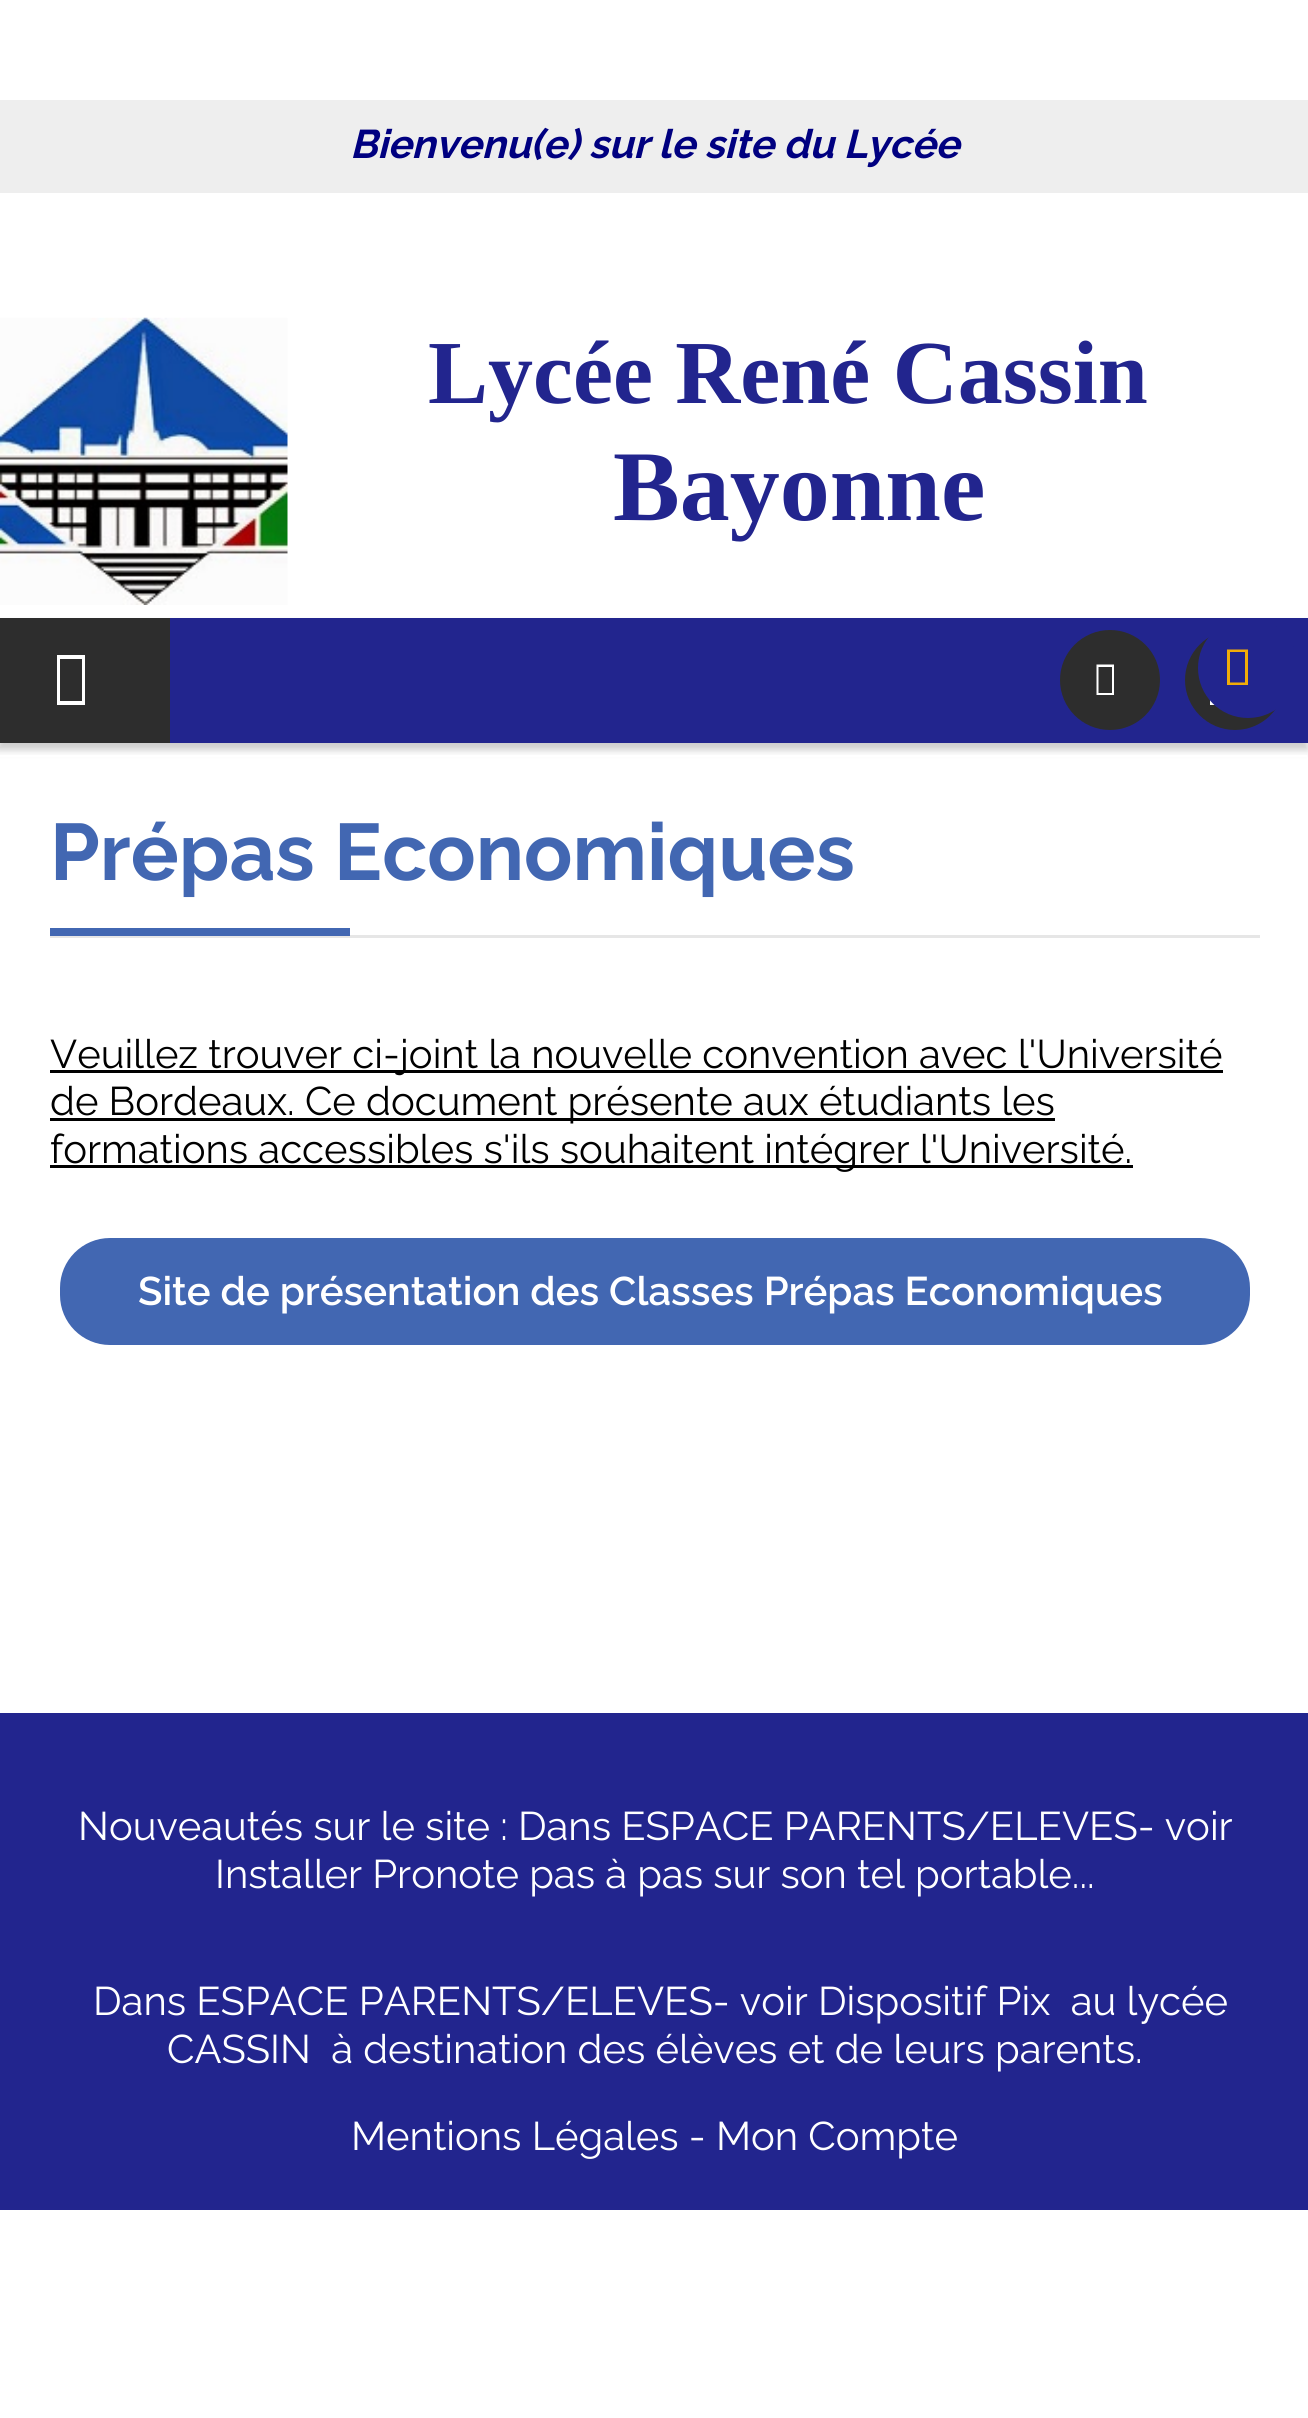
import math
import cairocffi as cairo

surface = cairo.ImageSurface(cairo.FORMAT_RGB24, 1308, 2418)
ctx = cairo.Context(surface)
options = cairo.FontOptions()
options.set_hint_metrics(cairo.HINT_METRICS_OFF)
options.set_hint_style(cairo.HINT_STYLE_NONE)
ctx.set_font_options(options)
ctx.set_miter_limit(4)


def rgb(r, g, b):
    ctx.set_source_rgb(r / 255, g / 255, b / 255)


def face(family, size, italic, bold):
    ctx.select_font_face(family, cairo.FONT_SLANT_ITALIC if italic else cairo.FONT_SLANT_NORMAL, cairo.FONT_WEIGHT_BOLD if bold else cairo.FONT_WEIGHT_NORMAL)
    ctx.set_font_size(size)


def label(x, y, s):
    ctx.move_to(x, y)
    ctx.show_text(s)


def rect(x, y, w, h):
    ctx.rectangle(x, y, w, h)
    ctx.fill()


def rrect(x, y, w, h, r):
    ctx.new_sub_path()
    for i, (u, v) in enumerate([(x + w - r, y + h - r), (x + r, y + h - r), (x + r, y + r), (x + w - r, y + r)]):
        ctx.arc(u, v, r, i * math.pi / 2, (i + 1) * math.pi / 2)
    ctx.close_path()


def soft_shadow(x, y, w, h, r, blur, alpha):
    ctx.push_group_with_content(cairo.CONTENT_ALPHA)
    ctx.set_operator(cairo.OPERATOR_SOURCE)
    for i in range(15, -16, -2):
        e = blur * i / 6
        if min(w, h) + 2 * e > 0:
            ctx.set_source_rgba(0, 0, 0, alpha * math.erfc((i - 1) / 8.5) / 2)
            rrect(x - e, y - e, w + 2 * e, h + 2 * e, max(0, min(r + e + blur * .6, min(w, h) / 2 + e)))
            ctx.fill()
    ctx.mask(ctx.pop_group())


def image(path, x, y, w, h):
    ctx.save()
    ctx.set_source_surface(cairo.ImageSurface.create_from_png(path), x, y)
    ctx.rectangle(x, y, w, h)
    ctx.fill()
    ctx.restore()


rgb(255, 255, 255)
ctx.paint()
rgb(238, 238, 238)
rect(0, 100, 1308, 93)
face('Raleway', 40, 1, 1)
rgb(0, 0, 128)
label(350, 158, 'Bienvenu(e) sur le site du Lycée')
image('image0.png', 0, 317, 288, 288)
face('Liberation Serif', 90, 0, 1)
rgb(34, 37, 142)
label(428, 403, 'Lycée René Cassin')
face('Liberation Serif', 100, 0, 1)
label(613, 520, 'Bayonne')
rgb(0, 0, 0)
soft_shadow(-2, 625, 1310, 125, 0, 4, 0.2)
rgb(45, 45, 45)
rect(0, 618, 170, 125)
rgb(255, 255, 255)
ctx.new_path()
ctx.move_to(57, 705)
ctx.line_to(57, 655)
ctx.line_to(85, 655)
ctx.line_to(85, 705)
ctx.close_path()
ctx.move_to(60, 701)
ctx.line_to(82, 701)
ctx.line_to(82, 659)
ctx.line_to(60, 659)
ctx.close_path()
ctx.fill()
rgb(34, 37, 142)
rect(170, 618, 1138, 125)
rgb(45, 45, 45)
ctx.arc(1110, 680, 50, 0, 2 * math.pi)
ctx.fill()
rgb(255, 255, 255)
ctx.new_path()
ctx.move_to(1096.5, 695)
ctx.line_to(1096.5, 664.5)
ctx.line_to(1114, 664.5)
ctx.line_to(1114, 695)
ctx.close_path()
ctx.move_to(1098.5, 693)
ctx.line_to(1112, 693)
ctx.line_to(1112, 667)
ctx.line_to(1098.5, 667)
ctx.close_path()
ctx.fill()
rgb(45, 45, 45)
ctx.arc(1235, 680, 50, 0, 2 * math.pi)
ctx.fill()
rgb(255, 255, 255)
ctx.new_path()
ctx.move_to(1210, 705)
ctx.line_to(1210, 665.5)
ctx.line_to(1233, 665.5)
ctx.line_to(1233, 705)
ctx.close_path()
ctx.move_to(1213, 702)
ctx.line_to(1230, 702)
ctx.line_to(1230, 668.5)
ctx.line_to(1213, 668.5)
ctx.close_path()
ctx.fill()
rect(0, 755, 1307, 2)
rgb(230, 230, 230)
rect(50, 935, 1210, 3)
face('Raleway', 80, 0, 1)
rgb(66, 103, 178)
label(50, 880, 'Prépas Economiques')
rect(50, 928, 300, 8)
rgb(0, 0, 0)
rect(50, 1070, 1173, 3)
face('Raleway', 40, 0, 0)
label(50, 1068, 'Veuillez trouver ci-joint la nouvelle convention avec l\'Université')
rect(50, 1118, 1005, 3)
label(50, 1115, 'de Bordeaux. Ce document présente aux étudiants les')
rect(50, 1165, 1083, 3)
label(50, 1163, 'formations accessibles s\'ils souhaitent intégrer l\'Université.')
rgb(66, 103, 178)
rrect(62.5, 1240.5, 1185, 102, 47.5)
ctx.fill_preserve()
ctx.set_line_width(5)
ctx.stroke()
face('Raleway SemiBold', 40, 0, 0)
rgb(255, 255, 255)
label(138, 1305, 'Site de présentation des Classes Prépas Economiques')
rgb(34, 37, 142)
rect(0, 1713, 1308, 497)
face('Raleway', 40, 0, 0)
rgb(255, 255, 255)
label(78, 1840, 'Nouveautés sur le site : Dans ESPACE PARENTS/ELEVES- voir')
label(215, 1888, 'Installer Pronote pas à pas sur son tel portable...')
label(93, 2015, 'Dans ESPACE PARENTS/ELEVES- voir Dispositif Pix  au lycée')
label(167, 2063, 'CASSIN  à destination des élèves et de leurs parents.')
label(351, 2150, 'Mentions Légales - Mon Compte')
rgb(34, 37, 142)
ctx.new_path()
ctx.arc(1248, 668, 50, 0, 2 * math.pi)
ctx.fill()
rgb(241, 172, 8)
ctx.new_path()
ctx.move_to(1227, 685)
ctx.line_to(1227, 649.5)
ctx.line_to(1248, 649.5)
ctx.line_to(1248, 685)
ctx.close_path()
ctx.move_to(1230, 682.5)
ctx.line_to(1245, 682.5)
ctx.line_to(1245, 652)
ctx.line_to(1230, 652)
ctx.close_path()
ctx.fill()
surface.write_to_png('render.png')
